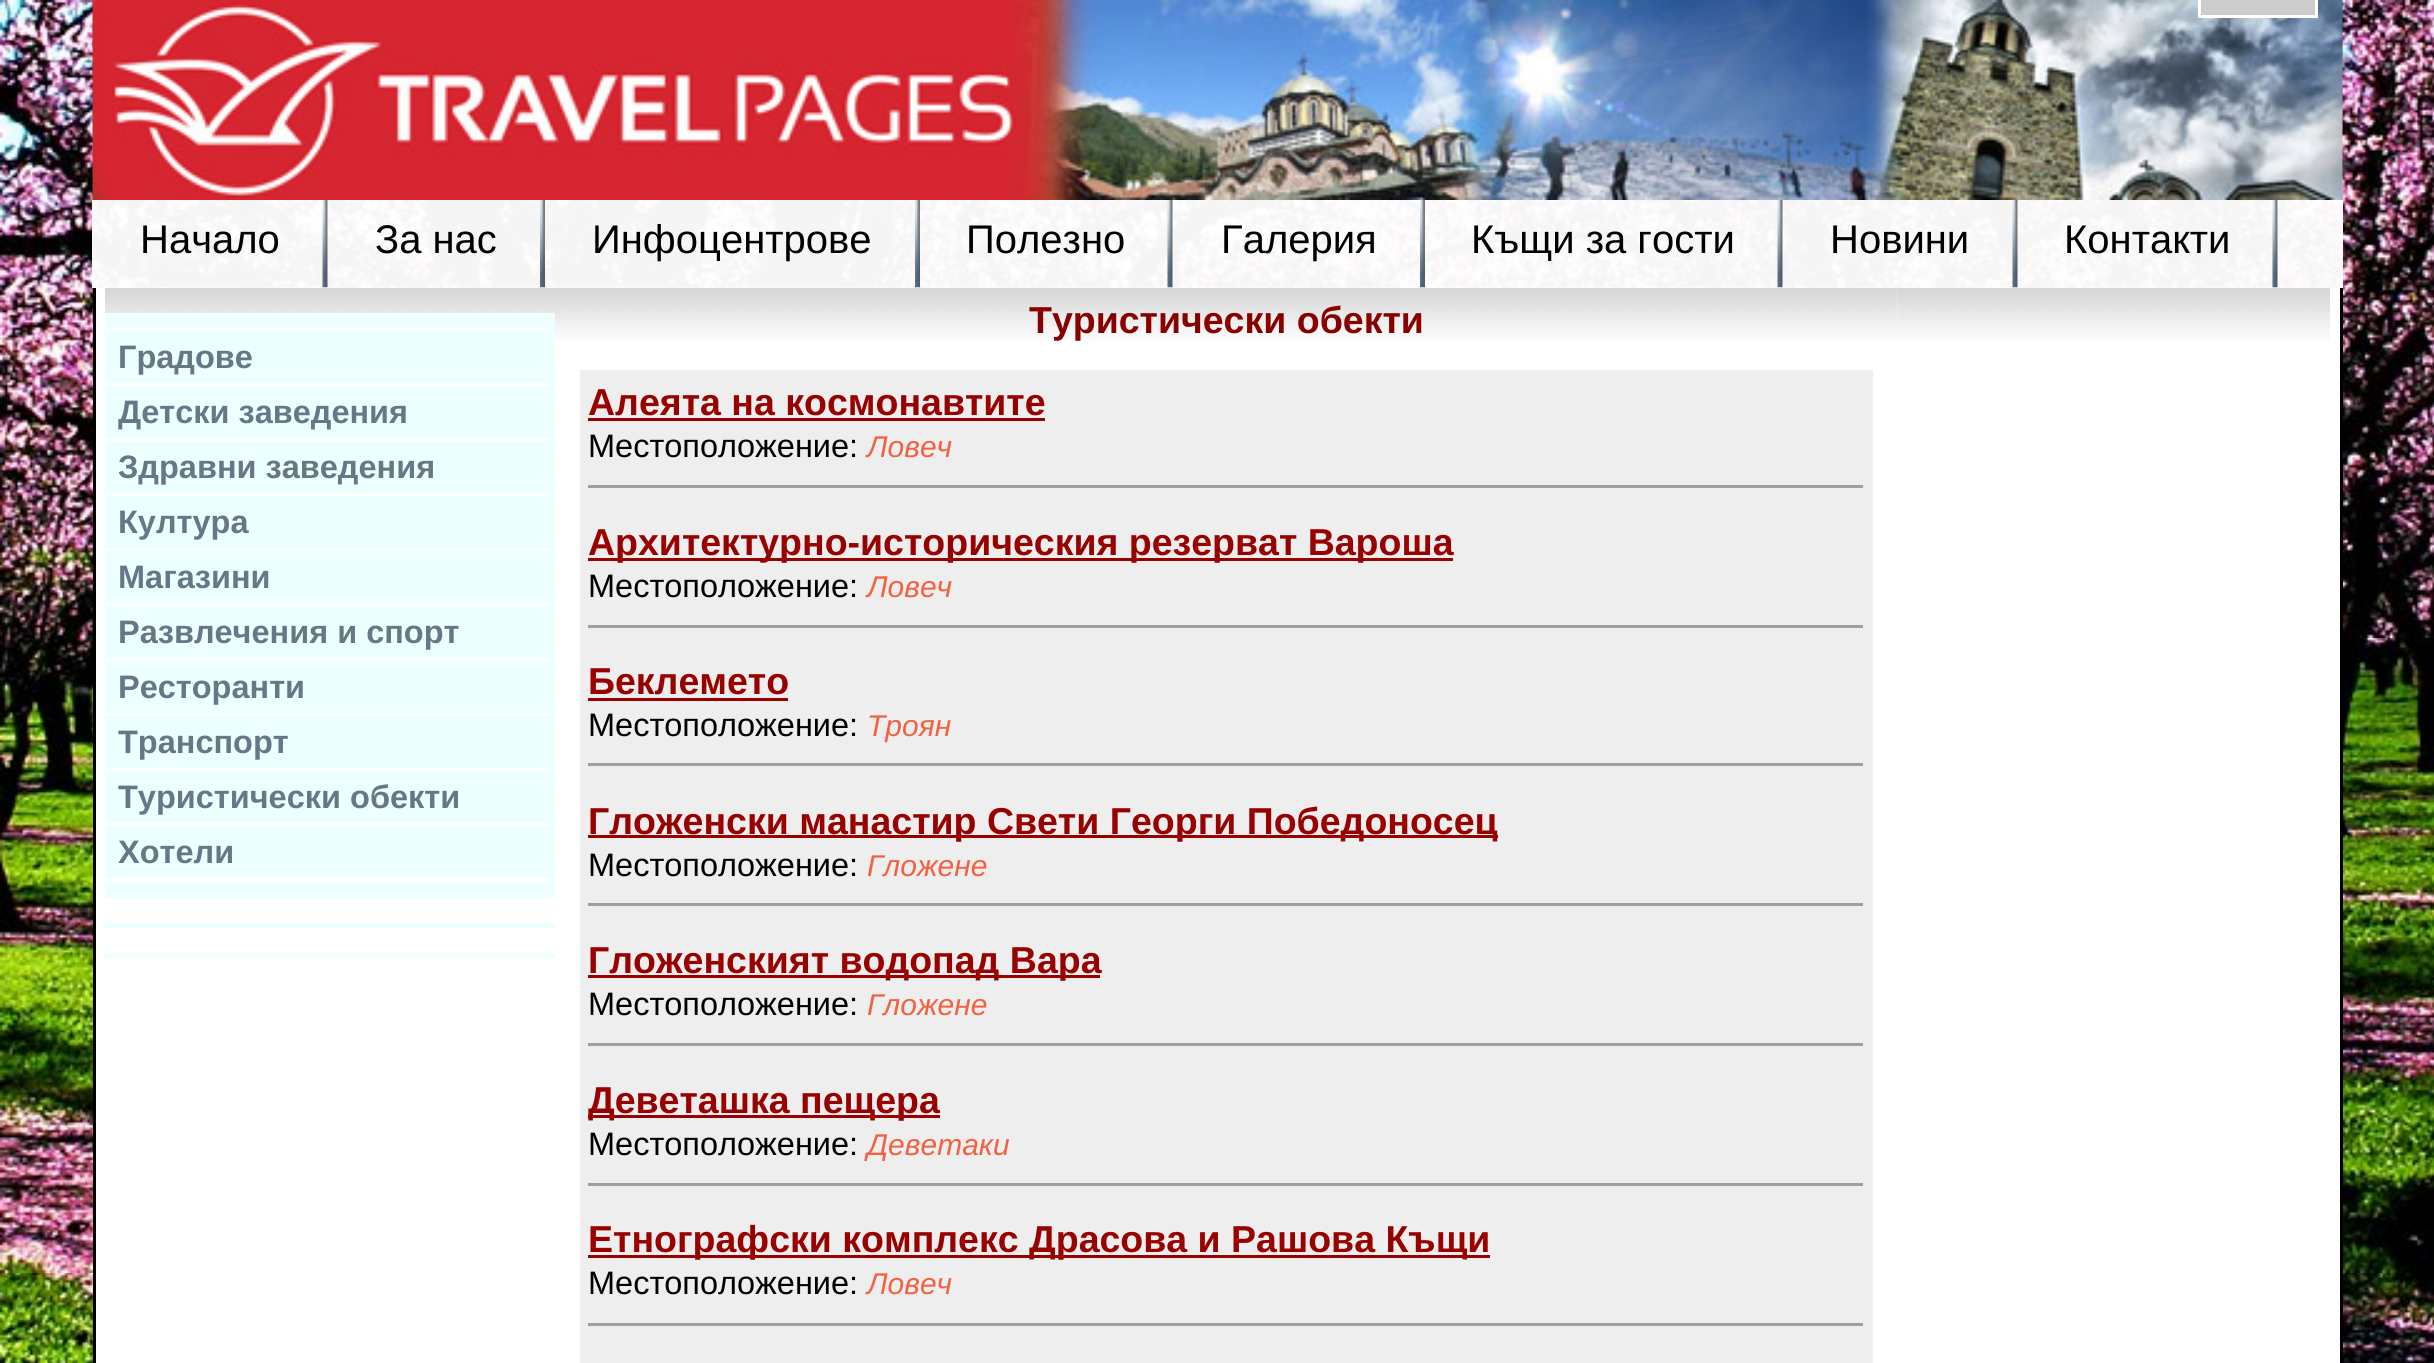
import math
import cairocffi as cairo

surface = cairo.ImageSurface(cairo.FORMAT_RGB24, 2434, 1363)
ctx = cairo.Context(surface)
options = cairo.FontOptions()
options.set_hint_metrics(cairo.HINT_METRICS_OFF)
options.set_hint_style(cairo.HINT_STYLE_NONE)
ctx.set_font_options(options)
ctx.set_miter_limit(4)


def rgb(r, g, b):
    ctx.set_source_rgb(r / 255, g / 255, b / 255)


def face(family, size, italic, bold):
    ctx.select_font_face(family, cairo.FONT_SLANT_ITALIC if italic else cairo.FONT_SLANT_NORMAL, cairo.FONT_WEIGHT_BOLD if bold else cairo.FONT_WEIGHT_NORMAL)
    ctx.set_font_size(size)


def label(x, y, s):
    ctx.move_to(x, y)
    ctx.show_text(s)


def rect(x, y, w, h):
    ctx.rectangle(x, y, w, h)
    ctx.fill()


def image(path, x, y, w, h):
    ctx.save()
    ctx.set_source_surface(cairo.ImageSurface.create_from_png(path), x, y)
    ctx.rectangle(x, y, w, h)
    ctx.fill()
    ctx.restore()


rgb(255, 255, 255)
ctx.paint()
image('image0.png', 0, 0, 2434, 1363)
image('image1.png', 92, 0, 2251, 200)
rgb(204, 204, 204)
ctx.rectangle(2199.5, -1.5, 117, 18)
ctx.fill_preserve()
rgb(255, 255, 255)
ctx.set_line_width(3)
ctx.stroke()
rect(96, 288, 2244, 1075)
image('image10.png', 105, 287, 450, 26)
image('image11.png', 555, 287, 1343, 53)
image('image12.png', 1897, 287, 433, 53)
ctx.set_source_rgba(1, 1, 1, 0.96)
rect(92, 200, 2251, 88)
image('image2.png', 322, 200, 6, 88)
face('Liberation Sans', 40, 0, 0)
rgb(0, 0, 0)
label(140, 253, 'Начало')
image('image3.png', 540, 200, 5, 88)
label(375, 253, 'За нас')
image('image4.png', 915, 200, 5, 88)
label(592, 253, 'Инфоцентрове')
image('image5.png', 1167, 200, 6, 88)
label(966, 253, 'Полезно')
image('image6.png', 1420, 200, 5, 88)
label(1221, 253, 'Галерия')
image('image7.png', 1777, 200, 6, 88)
label(1471, 253, 'Къщи за гости')
image('image8.png', 2012, 200, 6, 88)
label(1830, 253, 'Новини')
image('image9.png', 2272, 200, 6, 88)
label(2064, 253, 'Контакти')
rect(2340, 288, 3, 1075)
rect(93, 288, 3, 1075)
rgb(238, 255, 255)
rect(105, 313, 450, 585)
rgb(255, 255, 255)
rect(105, 328, 445, 3)
rect(105, 878, 445, 5)
rect(105, 383, 445, 3)
face('Liberation Sans', 32.5, 0, 1)
rgb(103, 119, 135)
label(118, 368, 'Градове')
rgb(255, 255, 255)
rect(105, 438, 445, 3)
rgb(103, 119, 135)
label(118, 423, 'Детски заведения')
rgb(255, 255, 255)
rect(105, 493, 445, 3)
rgb(103, 119, 135)
label(118, 478, 'Здравни заведения')
rgb(255, 255, 255)
rect(105, 548, 445, 3)
rgb(103, 119, 135)
label(118, 533, 'Култура')
rgb(255, 255, 255)
rect(105, 603, 445, 3)
rgb(103, 119, 135)
label(118, 588, 'Магазини')
rgb(255, 255, 255)
rect(105, 658, 445, 3)
rgb(103, 119, 135)
label(118, 643, 'Развлечения и спорт')
rgb(255, 255, 255)
rect(105, 713, 445, 3)
rgb(103, 119, 135)
label(118, 698, 'Ресторанти')
rgb(255, 255, 255)
rect(105, 768, 445, 3)
rgb(103, 119, 135)
label(118, 753, 'Транспорт')
rgb(255, 255, 255)
rect(105, 823, 445, 3)
rgb(103, 119, 135)
label(118, 808, 'Туристически обекти')
label(118, 863, 'Хотели')
rgb(238, 255, 255)
rect(105, 923, 450, 5)
rect(105, 953, 450, 5)
face('Liberation Sans', 37.5, 0, 1)
rgb(136, 0, 0)
label(1029, 333, 'Туристически обекти')
rgb(238, 238, 238)
rect(580, 370, 1293, 993)
rgb(153, 0, 0)
label(588, 415, 'Алеята на космонавтите')
rect(588, 418, 457, 3)
face('Liberation Sans', 32.5, 0, 0)
rgb(0, 0, 0)
label(588, 457, 'Местоположение:')
face('Liberation Sans', 30, 1, 0)
rgb(242, 98, 65)
label(867, 457, 'Ловеч')
rgb(159, 159, 159)
rect(588, 485, 1277, 3)
rgb(238, 238, 238)
rect(1863, 485, 3, 3)
rgb(153, 0, 0)
rect(588, 558, 865, 3)
face('Liberation Sans', 37.5, 0, 1)
label(588, 555, 'Архитектурно-историческия резерват Вароша')
face('Liberation Sans', 32.5, 0, 0)
rgb(0, 0, 0)
label(588, 597, 'Местоположение:')
face('Liberation Sans', 30, 1, 0)
rgb(242, 98, 65)
label(867, 597, 'Ловеч')
rgb(159, 159, 159)
rect(588, 625, 1277, 3)
rgb(238, 238, 238)
rect(1863, 625, 3, 3)
face('Liberation Sans', 37.5, 0, 1)
rgb(153, 0, 0)
label(588, 694, 'Беклемето')
rect(588, 698, 200, 3)
face('Liberation Sans', 32.5, 0, 0)
rgb(0, 0, 0)
label(588, 736, 'Местоположение:')
face('Liberation Sans', 30, 1, 0)
rgb(242, 98, 65)
label(867, 736, 'Троян')
rgb(159, 159, 159)
rect(588, 763, 1277, 3)
rgb(238, 238, 238)
rect(1863, 763, 3, 3)
rgb(153, 0, 0)
rect(588, 835, 910, 3)
face('Liberation Sans', 37.5, 0, 1)
label(588, 834, 'Гложенски манастир Свети Георги Победоносец')
face('Liberation Sans', 32.5, 0, 0)
rgb(0, 0, 0)
label(588, 876, 'Местоположение:')
face('Liberation Sans', 30, 1, 0)
rgb(242, 98, 65)
label(867, 876, 'Гложене')
rgb(159, 159, 159)
rect(588, 903, 1277, 3)
rgb(238, 238, 238)
rect(1863, 903, 3, 3)
rgb(153, 0, 0)
rect(588, 975, 512, 3)
face('Liberation Sans', 37.5, 0, 1)
label(588, 973, 'Гложенският водопад Вара')
face('Liberation Sans', 32.5, 0, 0)
rgb(0, 0, 0)
label(588, 1015, 'Местоположение:')
face('Liberation Sans', 30, 1, 0)
rgb(242, 98, 65)
label(867, 1015, 'Гложене')
rgb(159, 159, 159)
rect(588, 1043, 1277, 3)
rgb(238, 238, 238)
rect(1863, 1043, 3, 3)
rgb(153, 0, 0)
rect(588, 1115, 352, 3)
face('Liberation Sans', 37.5, 0, 1)
label(588, 1113, 'Деветашка пещера')
face('Liberation Sans', 32.5, 0, 0)
rgb(0, 0, 0)
label(588, 1155, 'Местоположение:')
face('Liberation Sans', 30, 1, 0)
rgb(242, 98, 65)
label(867, 1155, 'Деветаки')
rgb(159, 159, 159)
rect(588, 1183, 1277, 3)
rgb(238, 238, 238)
rect(1863, 1183, 3, 3)
rgb(153, 0, 0)
rect(588, 1255, 902, 3)
face('Liberation Sans', 37.5, 0, 1)
label(588, 1252, 'Етнографски комплекс Драсова и Рашова Къщи')
face('Liberation Sans', 32.5, 0, 0)
rgb(0, 0, 0)
label(588, 1294, 'Местоположение:')
face('Liberation Sans', 30, 1, 0)
rgb(242, 98, 65)
label(867, 1294, 'Ловеч')
rgb(159, 159, 159)
rect(588, 1323, 1277, 3)
rgb(238, 238, 238)
rect(1863, 1323, 3, 3)
surface.write_to_png('render.png')
